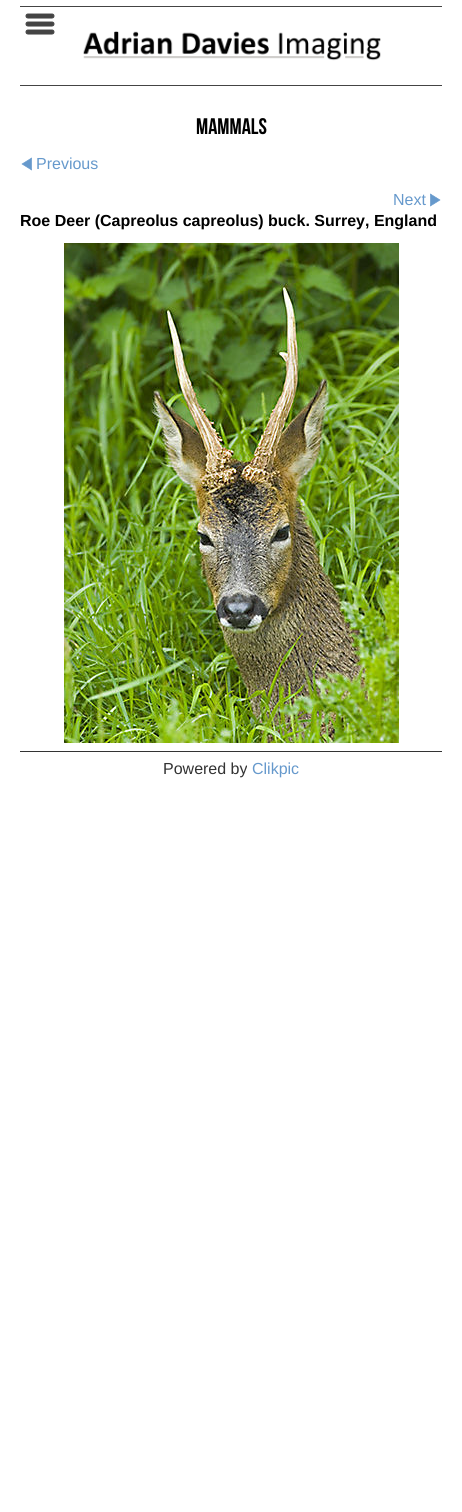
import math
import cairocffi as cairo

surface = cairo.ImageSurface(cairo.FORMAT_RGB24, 462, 1512)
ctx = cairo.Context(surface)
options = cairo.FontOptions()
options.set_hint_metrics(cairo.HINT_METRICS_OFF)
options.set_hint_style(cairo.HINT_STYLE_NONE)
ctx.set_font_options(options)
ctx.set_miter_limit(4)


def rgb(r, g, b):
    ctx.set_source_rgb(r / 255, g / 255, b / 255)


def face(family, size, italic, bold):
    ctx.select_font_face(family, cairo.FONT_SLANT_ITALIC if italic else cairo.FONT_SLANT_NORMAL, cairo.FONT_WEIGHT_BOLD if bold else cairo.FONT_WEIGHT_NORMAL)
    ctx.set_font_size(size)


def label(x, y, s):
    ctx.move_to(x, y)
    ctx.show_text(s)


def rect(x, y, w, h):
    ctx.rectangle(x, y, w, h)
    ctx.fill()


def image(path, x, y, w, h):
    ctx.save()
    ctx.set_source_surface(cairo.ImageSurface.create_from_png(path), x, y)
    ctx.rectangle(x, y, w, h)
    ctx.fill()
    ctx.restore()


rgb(255, 255, 255)
ctx.paint()
rgb(68, 68, 68)
rect(20, 6, 422, 1)
rect(20, 85, 422, 1)
image('image0.png', 83, 31, 298, 30)
image('image1.png', 25, 13, 30, 22)
face('Bebas Neue', 22.5, 0, 0)
rgb(0, 0, 0)
label(196, 134, 'Mammals')
image('image2.png', 21, 157, 11, 14)
face('Liberation Sans', 16, 0, 0)
rgb(102, 153, 204)
label(36, 169, 'Previous')
label(393, 205, 'Next')
image('image3.png', 430, 193, 11, 14)
face('Liberation Sans', 16, 0, 1)
rgb(0, 0, 0)
label(20, 226, 'Roe Deer (Capreolus capreolus) buck. Surrey, England')
image('image4.png', 64, 243, 335, 500)
rgb(51, 51, 51)
rect(20, 751, 422, 1)
face('Liberation Sans', 16, 0, 0)
label(163, 774, 'Powered by')
rgb(102, 153, 204)
label(252, 774, 'Clikpic')
surface.write_to_png('render.png')
